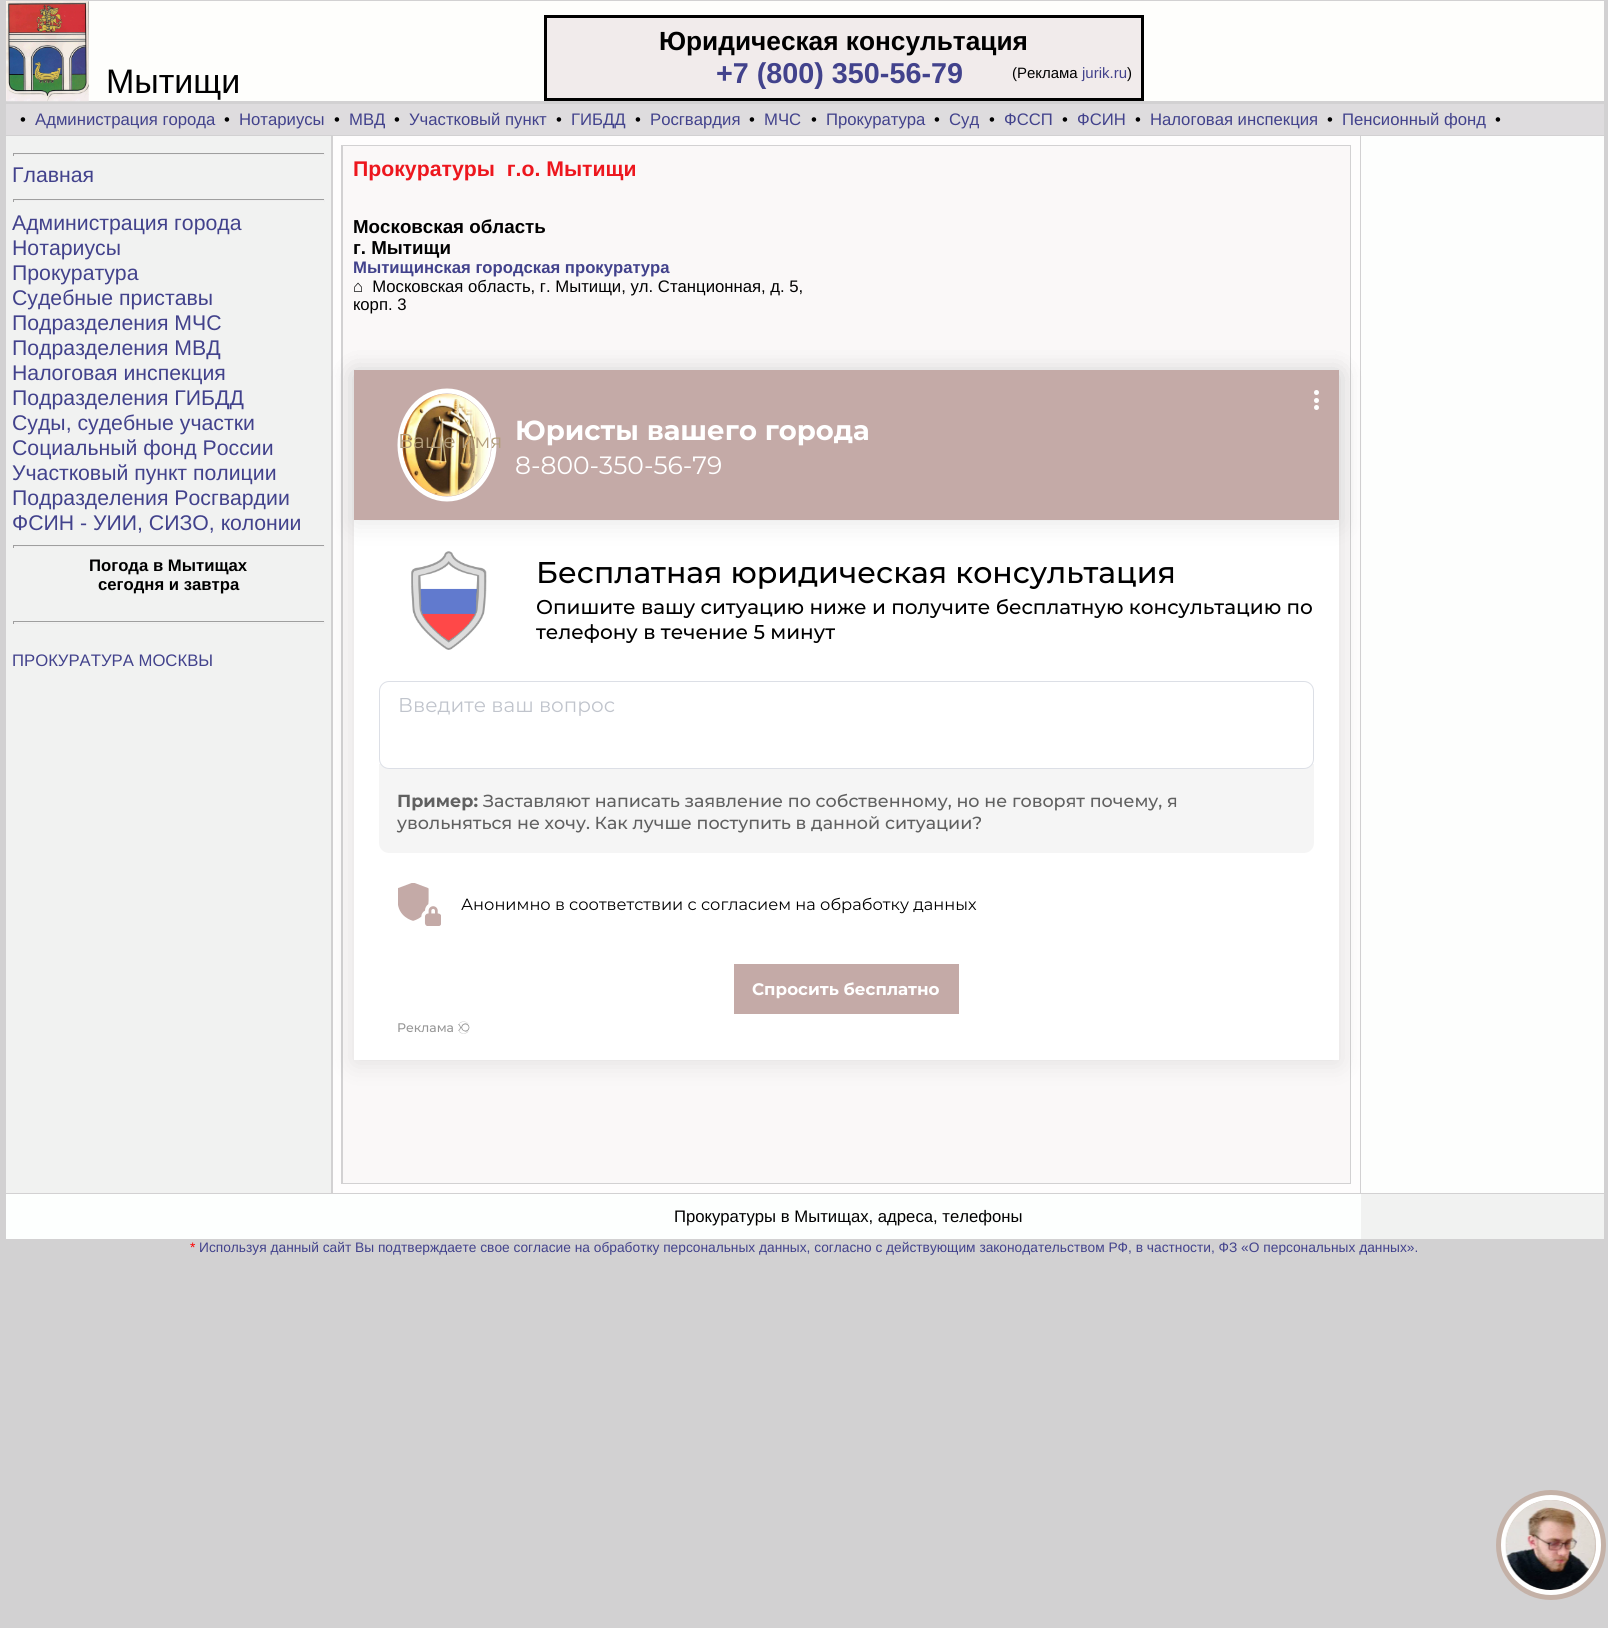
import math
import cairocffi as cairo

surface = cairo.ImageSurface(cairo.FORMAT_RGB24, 1608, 1628)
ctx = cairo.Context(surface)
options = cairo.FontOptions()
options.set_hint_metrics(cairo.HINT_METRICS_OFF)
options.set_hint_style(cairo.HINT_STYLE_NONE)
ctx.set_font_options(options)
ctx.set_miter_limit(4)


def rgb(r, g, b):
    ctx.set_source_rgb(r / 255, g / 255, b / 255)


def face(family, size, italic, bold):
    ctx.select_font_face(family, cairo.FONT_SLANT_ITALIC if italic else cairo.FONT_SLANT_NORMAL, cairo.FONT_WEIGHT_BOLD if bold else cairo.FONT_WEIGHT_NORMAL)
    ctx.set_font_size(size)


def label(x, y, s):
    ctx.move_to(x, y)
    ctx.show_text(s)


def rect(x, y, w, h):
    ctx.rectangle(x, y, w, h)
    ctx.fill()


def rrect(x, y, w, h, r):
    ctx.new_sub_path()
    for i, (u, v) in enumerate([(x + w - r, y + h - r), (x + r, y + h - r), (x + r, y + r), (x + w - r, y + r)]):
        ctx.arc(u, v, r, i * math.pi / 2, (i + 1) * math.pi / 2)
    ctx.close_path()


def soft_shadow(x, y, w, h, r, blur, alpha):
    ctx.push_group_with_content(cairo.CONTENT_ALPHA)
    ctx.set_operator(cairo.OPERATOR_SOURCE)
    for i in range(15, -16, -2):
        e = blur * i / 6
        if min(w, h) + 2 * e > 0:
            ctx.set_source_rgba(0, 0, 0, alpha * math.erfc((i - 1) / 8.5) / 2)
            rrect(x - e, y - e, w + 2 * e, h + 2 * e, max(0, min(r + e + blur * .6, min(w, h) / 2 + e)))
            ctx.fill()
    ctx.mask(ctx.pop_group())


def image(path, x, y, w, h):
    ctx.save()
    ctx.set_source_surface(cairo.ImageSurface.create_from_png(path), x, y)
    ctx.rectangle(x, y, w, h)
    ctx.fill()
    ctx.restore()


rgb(210, 209, 210)
ctx.paint()
rgb(254, 254, 252)
rect(6, 1, 1598, 100)
image('image0.png', 6, 1, 83, 101)
face('Liberation Sans', 34, 0, 0)
rgb(0, 0, 0)
label(106, 93, 'Мытищи')
rgb(241, 235, 235)
ctx.rectangle(545.5, 16.5, 597, 83)
ctx.fill_preserve()
rgb(0, 0, 0)
ctx.set_line_width(3)
ctx.stroke()
face('Liberation Sans', 26.25, 0, 1)
label(659, 50, 'Юридическая консультация')
face('Liberation Sans', 28.75, 0, 1)
rgb(66, 66, 140)
label(716, 83, '+7 (800) 350-56-79')
face('Liberation Sans', 15, 0, 0)
rgb(0, 0, 0)
label(1012, 78, '(Реклама')
rgb(66, 66, 140)
label(1082, 78, 'jurik.ru')
rgb(0, 0, 0)
label(1127, 78, ')')
rgb(222, 220, 222)
rect(6, 104, 1598, 31)
face('Liberation Sans', 16.7, 0, 0)
rgb(0, 0, 0)
label(20, 125, '•')
rgb(66, 66, 140)
label(35, 125, 'Администрация города')
rgb(0, 0, 0)
label(224, 125, '•')
rgb(66, 66, 140)
label(239, 125, 'Нотариусы')
rgb(0, 0, 0)
label(334, 125, '•')
rgb(66, 66, 140)
label(349, 125, 'МВД')
rgb(0, 0, 0)
label(394, 125, '•')
rgb(66, 66, 140)
label(409, 125, 'Участковый пункт')
rgb(0, 0, 0)
label(556, 125, '•')
rgb(66, 66, 140)
label(571, 125, 'ГИБДД')
rgb(0, 0, 0)
label(635, 125, '•')
rgb(66, 66, 140)
label(650, 125, 'Росгвардия')
rgb(0, 0, 0)
label(749, 125, '•')
rgb(66, 66, 140)
label(764, 125, 'МЧС')
rgb(0, 0, 0)
label(811, 125, '•')
rgb(66, 66, 140)
label(826, 125, 'Прокуратура')
rgb(0, 0, 0)
label(934, 125, '•')
rgb(66, 66, 140)
label(949, 125, 'Суд')
rgb(0, 0, 0)
label(989, 125, '•')
rgb(66, 66, 140)
label(1004, 125, 'ФССП')
rgb(0, 0, 0)
label(1062, 125, '•')
rgb(66, 66, 140)
label(1077, 125, 'ФСИН')
rgb(0, 0, 0)
label(1135, 125, '•')
rgb(66, 66, 140)
label(1150, 125, 'Налоговая инспекция')
rgb(0, 0, 0)
label(1327, 125, '•')
rgb(66, 66, 140)
label(1342, 125, 'Пенсионный фонд')
rgb(0, 0, 0)
label(1495, 125, '•')
rgb(241, 242, 241)
rect(6, 136, 325, 1057)
rgb(159, 159, 159)
rect(13, 153, 312, 1)
rgb(238, 238, 238)
rect(324, 153, 1, 3)
rect(13, 154, 312, 1)
rgb(159, 159, 159)
rect(13, 153, 1, 3)
face('Liberation Sans', 21.25, 0, 0)
rgb(66, 66, 140)
label(12, 182, 'Главная')
rgb(159, 159, 159)
rect(13, 199, 312, 1)
rgb(238, 238, 238)
rect(324, 199, 1, 3)
rect(13, 200, 312, 1)
rgb(159, 159, 159)
rect(13, 199, 1, 3)
rgb(66, 66, 140)
label(12, 230, 'Администрация города')
label(12, 255, 'Нотариусы')
label(12, 280, 'Прокуратура')
label(12, 305, 'Судебные приставы')
label(12, 330, 'Подразделения МЧС')
label(12, 355, 'Подразделения МВД')
label(12, 380, 'Налоговая инспекция')
label(12, 405, 'Подразделения ГИБДД')
label(12, 430, 'Суды, судебные участки')
label(12, 455, 'Социальный фонд России')
label(12, 480, 'Участковый пункт полиции')
label(12, 505, 'Подразделения Росгвардии')
label(12, 530, 'ФСИН - УИИ, СИЗО, колонии')
rgb(159, 159, 159)
rect(13, 545, 312, 1)
rgb(238, 238, 238)
rect(324, 545, 1, 3)
rect(13, 546, 312, 1)
rgb(159, 159, 159)
rect(13, 545, 1, 3)
face('Liberation Sans', 16.7, 0, 1)
rgb(0, 0, 0)
label(89, 571, 'Погода в Мытищах')
label(98, 590, 'сегодня и завтра')
rgb(159, 159, 159)
rect(13, 621, 312, 1)
rgb(238, 238, 238)
rect(324, 621, 1, 3)
rect(13, 623, 312, 1)
rgb(159, 159, 159)
rect(13, 621, 1, 3)
face('Liberation Sans', 16.7, 0, 0)
rgb(66, 66, 140)
label(12, 666, 'ПРОКУРАТУРА МОСКВЫ')
rgb(254, 253, 253)
rect(333, 136, 1027, 1057)
rgb(210, 209, 210)
rect(341, 145, 1010, 1039)
rgb(250, 248, 248)
rect(343, 146, 1007, 1037)
face('Liberation Sans', 21.25, 0, 1)
rgb(237, 23, 30)
label(353, 176, 'Прокуратуры  г.о. Мытищи')
face('Liberation Sans', 18.75, 0, 1)
rgb(0, 0, 0)
label(353, 233, 'Московская область')
label(353, 254, 'г. Мытищи')
face('Liberation Sans', 16.7, 0, 1)
rgb(66, 66, 140)
label(353, 273, 'Мытищинская городская прокуратура')
face('Liberation Sans', 16.7, 0, 0)
rgb(0, 0, 0)
label(353, 292, '⌂  Московская область, г. Мытищи, ул. Станционная, д. 5,')
label(353, 310, 'корп. 3')
rgb(253, 254, 253)
rect(1361, 136, 243, 1057)
rgb(0, 0, 0)
soft_shadow(354, 373, 985, 690, 0, 12.5, 0.1)
rgb(255, 255, 255)
rect(354, 520, 985, 540)
rgb(0, 0, 0)
soft_shadow(354, 373, 985, 150, 0, 12.5, 0.1)
rgb(196, 170, 167)
rect(354, 370, 985, 150)
ctx.new_path()
ctx.move_to(447, 391)
ctx.curve_to(473, 391, 494, 415.5, 494, 445)
ctx.curve_to(494, 474.5, 473, 499, 447, 499)
ctx.curve_to(421, 499, 400, 474.5, 400, 445)
ctx.curve_to(400, 415.5, 421, 391, 447, 391)
ctx.close_path()
rgb(255, 255, 255)
ctx.set_line_width(5)
ctx.stroke()
image('image1.png', 402, 394, 89, 102)
ctx.arc(1316.5, 392.5, 2.5, 0, 2 * math.pi)
ctx.fill()
ctx.arc(1316.5, 400.5, 2.5, 0, 2 * math.pi)
ctx.fill()
ctx.arc(1316.5, 407.5, 2.5, 0, 2 * math.pi)
ctx.fill()
face('Montserrat', 27.5, 0, 1)
label(515, 440, 'Юристы вашего города')
face('Montserrat', 25, 0, 0)
label(515, 474, '8-800-350-56-79')
face('Montserrat', 20, 0, 0)
rgb(179, 158, 124)
label(398, 448, 'Ваше имя')
image('image2.png', 411, 551, 76, 99)
face('Montserrat Medium', 30, 0, 0)
rgb(0, 0, 0)
label(536, 583, 'Бесплатная юридическая консультация')
face('Montserrat Medium', 20, 0, 0)
label(536, 614, 'Опишите вашу ситуацию ниже и получите бесплатную консультацию по')
label(536, 639, 'телефону в течение 5 минут')
rgb(245, 245, 245)
ctx.new_path()
ctx.move_to(379, 764)
ctx.line_to(1314, 764)
ctx.line_to(1314, 843)
ctx.curve_to(1314, 848.5, 1309.5, 853, 1304, 853)
ctx.line_to(389, 853)
ctx.curve_to(383.5, 853, 379, 848.5, 379, 843)
ctx.close_path()
ctx.fill()
rgb(255, 255, 255)
rrect(379.5, 681.5, 934, 87, 9.5)
ctx.fill_preserve()
rgb(220, 223, 230)
ctx.set_line_width(1)
ctx.stroke()
face('Montserrat', 20, 0, 0)
rgb(192, 196, 204)
label(398, 712, 'Введите ваш вопрос')
face('Montserrat', 17.5, 0, 1)
rgb(96, 96, 96)
label(397, 807, 'Пример:')
face('Montserrat Medium', 17.5, 0, 0)
label(483, 807, 'Заставляют написать заявление по собственному, но не говорят почему, я')
label(397, 829, 'увольняться не хочу. Как лучше поступить в данной ситуации?')
image('image3.png', 398, 883, 43, 43)
face('Montserrat', 16.25, 0, 0)
rgb(0, 0, 0)
label(461, 910, 'Анонимно в соответствии с согласием на обработку данных')
rgb(196, 170, 167)
rect(734, 964, 225, 50)
face('Montserrat', 16.7, 0, 1)
rgb(255, 255, 255)
label(752, 995, 'Спросить бесплатно')
face('Montserrat Medium', 12.5, 0, 0)
rgb(150, 150, 150)
label(397, 1032, 'Реклама')
image('image4.png', 458, 1021, 12, 13)
rgb(253, 255, 254)
rect(6, 1194, 1355, 45)
face('Liberation Sans', 16.7, 0, 0)
rgb(0, 0, 0)
label(674, 1222, 'Прокуратуры в Мытищах, адреса, телефоны')
rgb(241, 242, 241)
rect(1361, 1194, 243, 45)
face('Liberation Sans', 13.75, 0, 0)
rgb(255, 0, 0)
label(190, 1252, '*')
rgb(66, 66, 140)
label(199, 1252, 'Используя данный сайт Вы подтверждаете свое согласие на обработку персональных данных, согласно с действующим законодательством РФ, в частности, ФЗ «О персональных данных».')
rgb(196, 177, 167)
ctx.new_path()
ctx.arc(1551, 1545, 55, 0, 2 * math.pi)
ctx.fill()
ctx.arc(1551, 1545, 47.5, 0, 2 * math.pi)
rgb(255, 255, 255)
ctx.set_line_width(5)
ctx.stroke()
image('image5.png', 1505, 1500, 91, 90)
surface.write_to_png('render.png')
